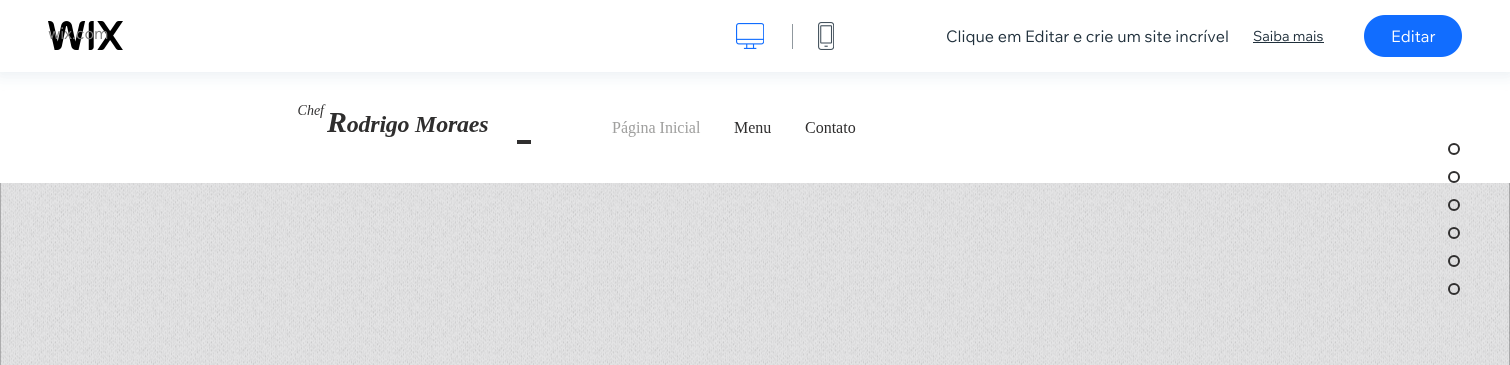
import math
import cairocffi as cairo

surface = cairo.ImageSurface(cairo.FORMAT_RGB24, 1510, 365)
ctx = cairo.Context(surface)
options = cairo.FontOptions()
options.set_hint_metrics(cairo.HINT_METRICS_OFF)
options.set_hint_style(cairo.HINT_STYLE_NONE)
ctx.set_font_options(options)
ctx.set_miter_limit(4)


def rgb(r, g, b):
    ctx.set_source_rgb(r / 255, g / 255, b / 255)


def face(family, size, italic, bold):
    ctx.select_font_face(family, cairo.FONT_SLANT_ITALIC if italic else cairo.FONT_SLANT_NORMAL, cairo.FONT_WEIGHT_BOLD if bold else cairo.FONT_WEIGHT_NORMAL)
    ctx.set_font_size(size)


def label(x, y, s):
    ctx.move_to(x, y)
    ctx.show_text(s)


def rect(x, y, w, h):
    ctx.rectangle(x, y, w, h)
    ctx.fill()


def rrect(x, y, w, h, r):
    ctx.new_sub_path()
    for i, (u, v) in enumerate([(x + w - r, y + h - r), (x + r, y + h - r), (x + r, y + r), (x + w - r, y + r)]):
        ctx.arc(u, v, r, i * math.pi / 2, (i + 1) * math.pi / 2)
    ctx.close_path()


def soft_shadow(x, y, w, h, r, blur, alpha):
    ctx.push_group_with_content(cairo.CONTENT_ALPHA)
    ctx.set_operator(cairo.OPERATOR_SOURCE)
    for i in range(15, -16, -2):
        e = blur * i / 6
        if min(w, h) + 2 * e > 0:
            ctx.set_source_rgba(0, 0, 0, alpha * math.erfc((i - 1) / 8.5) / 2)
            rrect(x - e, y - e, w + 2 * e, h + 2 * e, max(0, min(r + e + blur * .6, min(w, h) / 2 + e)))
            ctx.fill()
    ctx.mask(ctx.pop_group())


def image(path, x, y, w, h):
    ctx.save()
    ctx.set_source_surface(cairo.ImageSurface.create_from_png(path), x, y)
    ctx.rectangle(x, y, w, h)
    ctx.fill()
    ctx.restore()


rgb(255, 255, 255)
ctx.paint()
image('image3.png', 0, 72, 1510, 293)
rgb(129, 162, 182)
soft_shadow(0, 2, 1510, 72, 0, 9, 0.2)
rgb(255, 255, 255)
rect(0, 0, 1510, 72)
image('image0.png', 48, 21, 75, 29)
face('Wix Madefor Text', 16, 0, 0)
rgb(128, 128, 128)
label(48, 39, 'wix.com')
image('image1.png', 736, 23, 28, 26)
rgb(144, 152, 158)
rect(792, 24, 1, 25)
image('image2.png', 818, 22, 16, 28)
rgb(32, 48, 60)
label(946, 42, 'Clique em Editar e crie um site incrível')
face('Wix Madefor Text', 14, 0, 0)
label(1253, 41, 'Saiba mais')
rect(1253, 42, 71, 1)
rgb(17, 109, 255)
rrect(1364, 15, 98, 42, 21)
ctx.fill()
face('Wix Madefor Text', 16, 0, 0)
rgb(255, 255, 255)
label(1391, 42, 'Editar')
surface.write_to_png('render.png')
